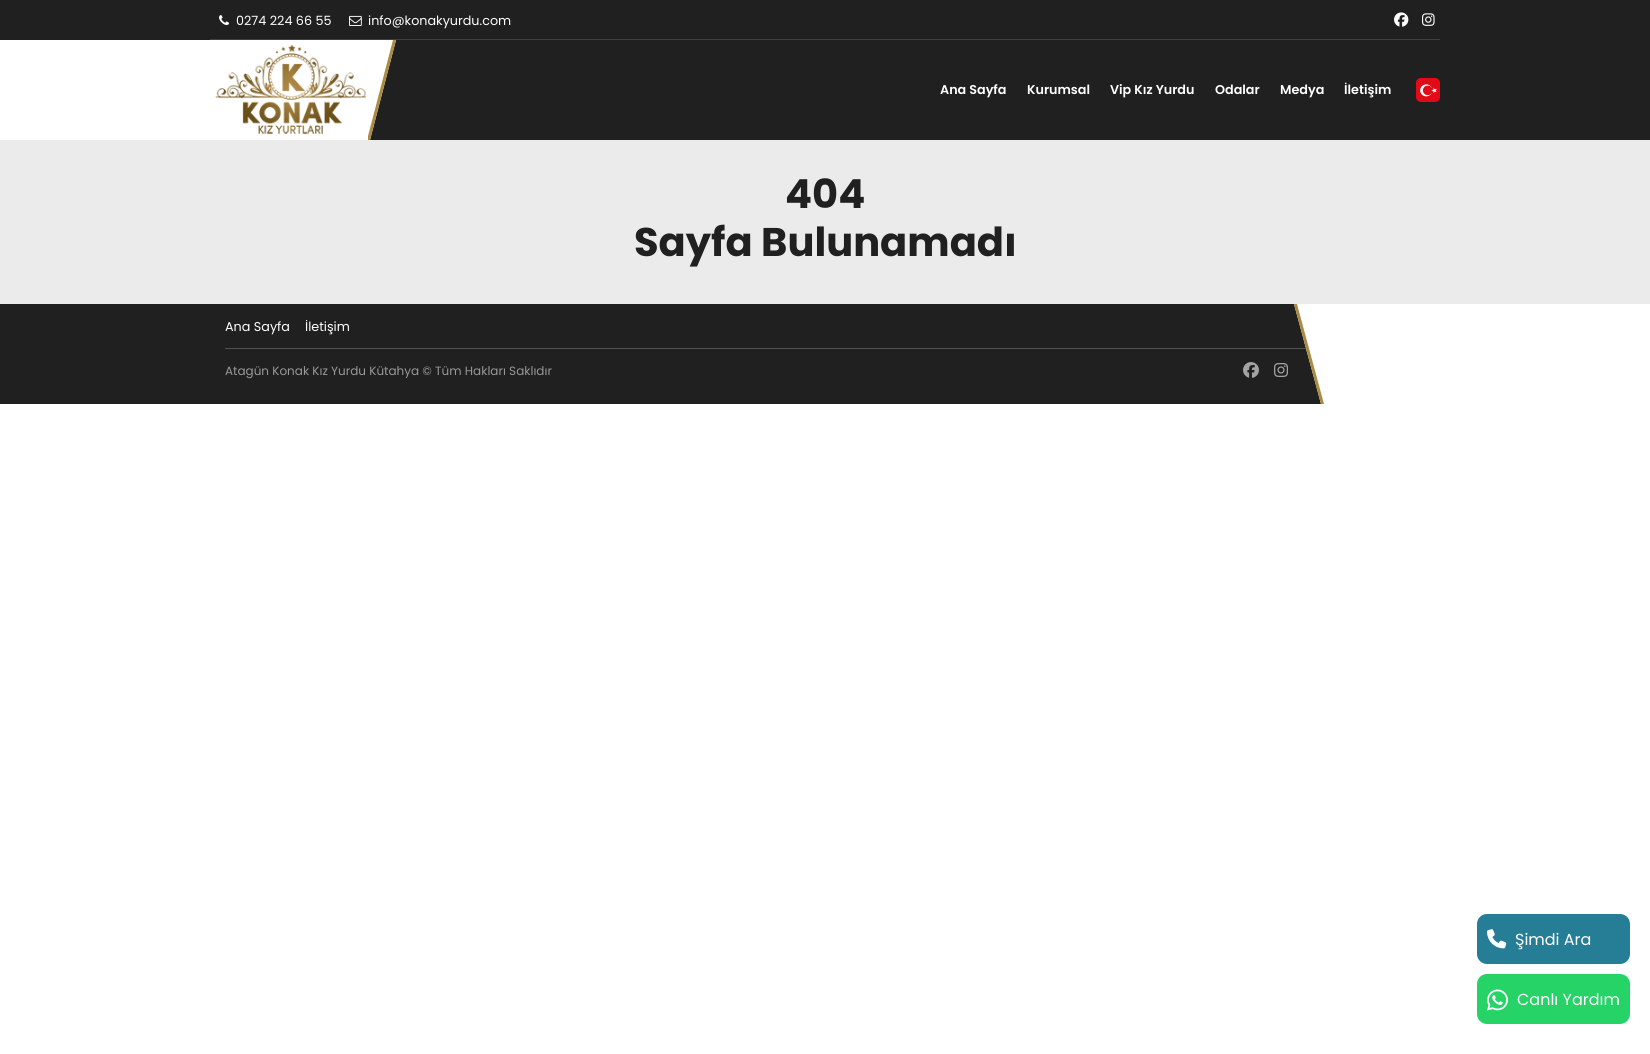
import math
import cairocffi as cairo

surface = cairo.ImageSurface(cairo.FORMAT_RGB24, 1650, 1054)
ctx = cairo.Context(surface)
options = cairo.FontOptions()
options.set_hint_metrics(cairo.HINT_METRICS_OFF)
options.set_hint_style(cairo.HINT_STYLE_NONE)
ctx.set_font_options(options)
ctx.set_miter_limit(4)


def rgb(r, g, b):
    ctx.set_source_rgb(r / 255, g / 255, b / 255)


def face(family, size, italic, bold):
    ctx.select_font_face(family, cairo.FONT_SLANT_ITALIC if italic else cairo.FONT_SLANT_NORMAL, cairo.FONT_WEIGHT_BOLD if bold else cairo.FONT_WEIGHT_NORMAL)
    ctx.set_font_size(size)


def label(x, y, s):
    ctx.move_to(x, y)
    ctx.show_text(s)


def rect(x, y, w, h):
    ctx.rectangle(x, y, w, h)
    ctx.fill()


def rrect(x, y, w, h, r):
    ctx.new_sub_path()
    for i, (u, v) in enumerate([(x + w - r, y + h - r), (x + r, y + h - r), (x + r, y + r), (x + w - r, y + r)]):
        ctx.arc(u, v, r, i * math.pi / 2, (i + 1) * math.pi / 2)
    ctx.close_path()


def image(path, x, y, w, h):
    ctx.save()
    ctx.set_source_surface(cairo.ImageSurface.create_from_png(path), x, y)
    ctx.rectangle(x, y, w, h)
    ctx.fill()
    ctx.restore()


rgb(255, 255, 255)
ctx.paint()
rgb(32, 32, 32)
rect(0, 0, 1650, 140)
rgb(65, 65, 65)
rect(210, 39, 1230, 1)
image('image0.png', 219, 15, 10, 11)
face('Poppins', 12.75, 0, 0)
rgb(255, 255, 255)
label(236, 25, '0274 224 66 55')
image('image1.png', 349, 15, 13, 11)
label(368, 25, 'info@konakyurdu.com')
image('image2.png', 1394, 12, 15, 15)
image('image3.png', 1422, 13, 13, 13)
rect(0, 40, 210, 100)
ctx.new_path()
ctx.move_to(336, 40)
ctx.line_to(396, 40)
ctx.line_to(370, 140)
ctx.line_to(310, 140)
ctx.close_path()
ctx.fill()
rgb(171, 139, 64)
ctx.new_path()
ctx.move_to(393, 40)
ctx.line_to(396, 40)
ctx.line_to(370, 140)
ctx.line_to(367, 140)
ctx.close_path()
ctx.fill()
rgb(255, 255, 255)
rect(210, 40, 158, 100)
image('image4.png', 215, 45, 152, 90)
face('Poppins SemiBold', 12.75, 0, 0)
label(940, 94, 'Ana Sayfa')
label(1027, 94, 'Kurumsal')
label(1110, 94, 'Vip Kız Yurdu')
label(1215, 94, 'Odalar')
label(1280, 94, 'Medya')
label(1344, 94, 'İletişim')
image('image5.png', 1416, 78, 24, 24)
rgb(235, 235, 235)
rect(0, 140, 1650, 164)
face('Poppins', 40, 0, 1)
rgb(32, 32, 32)
label(785, 208, '404')
label(634, 256, 'Sayfa Bulunamadı')
rect(0, 304, 1321, 100)
rgb(80, 80, 80)
rect(225, 348, 1082, 1)
face('Poppins', 12.75, 0, 0)
rgb(255, 255, 255)
label(225, 331, 'Ana Sayfa')
label(305, 331, 'İletişim')
face('Poppins', 12, 0, 0)
rgb(153, 153, 153)
label(225, 375, 'Atagün Konak Kız Yurdu Kütahya © Tüm Hakları Saklıdır')
image('image6.png', 1243, 362, 16, 16)
image('image7.png', 1274, 363, 14, 14)
rgb(255, 255, 255)
ctx.new_path()
ctx.move_to(1294, 304)
ctx.line_to(1354, 304)
ctx.line_to(1381, 404)
ctx.line_to(1321, 404)
ctx.close_path()
ctx.fill()
rgb(171, 139, 64)
ctx.new_path()
ctx.move_to(1294, 304)
ctx.line_to(1297, 304)
ctx.line_to(1324, 404)
ctx.line_to(1321, 404)
ctx.close_path()
ctx.fill()
rgb(38, 125, 150)
rrect(1477, 914, 153, 50, 10)
ctx.fill()
image('image8.png', 1487, 929, 20, 20)
face('Poppins', 16, 0, 0)
rgb(255, 255, 255)
label(1515, 945, 'Şimdi Ara')
rgb(37, 211, 102)
rrect(1477, 974, 153, 50, 10)
ctx.fill()
image('image9.png', 1487, 989, 21, 22)
rgb(255, 255, 255)
label(1517, 1005, 'Canlı Yardım')
surface.write_to_png('render.png')
